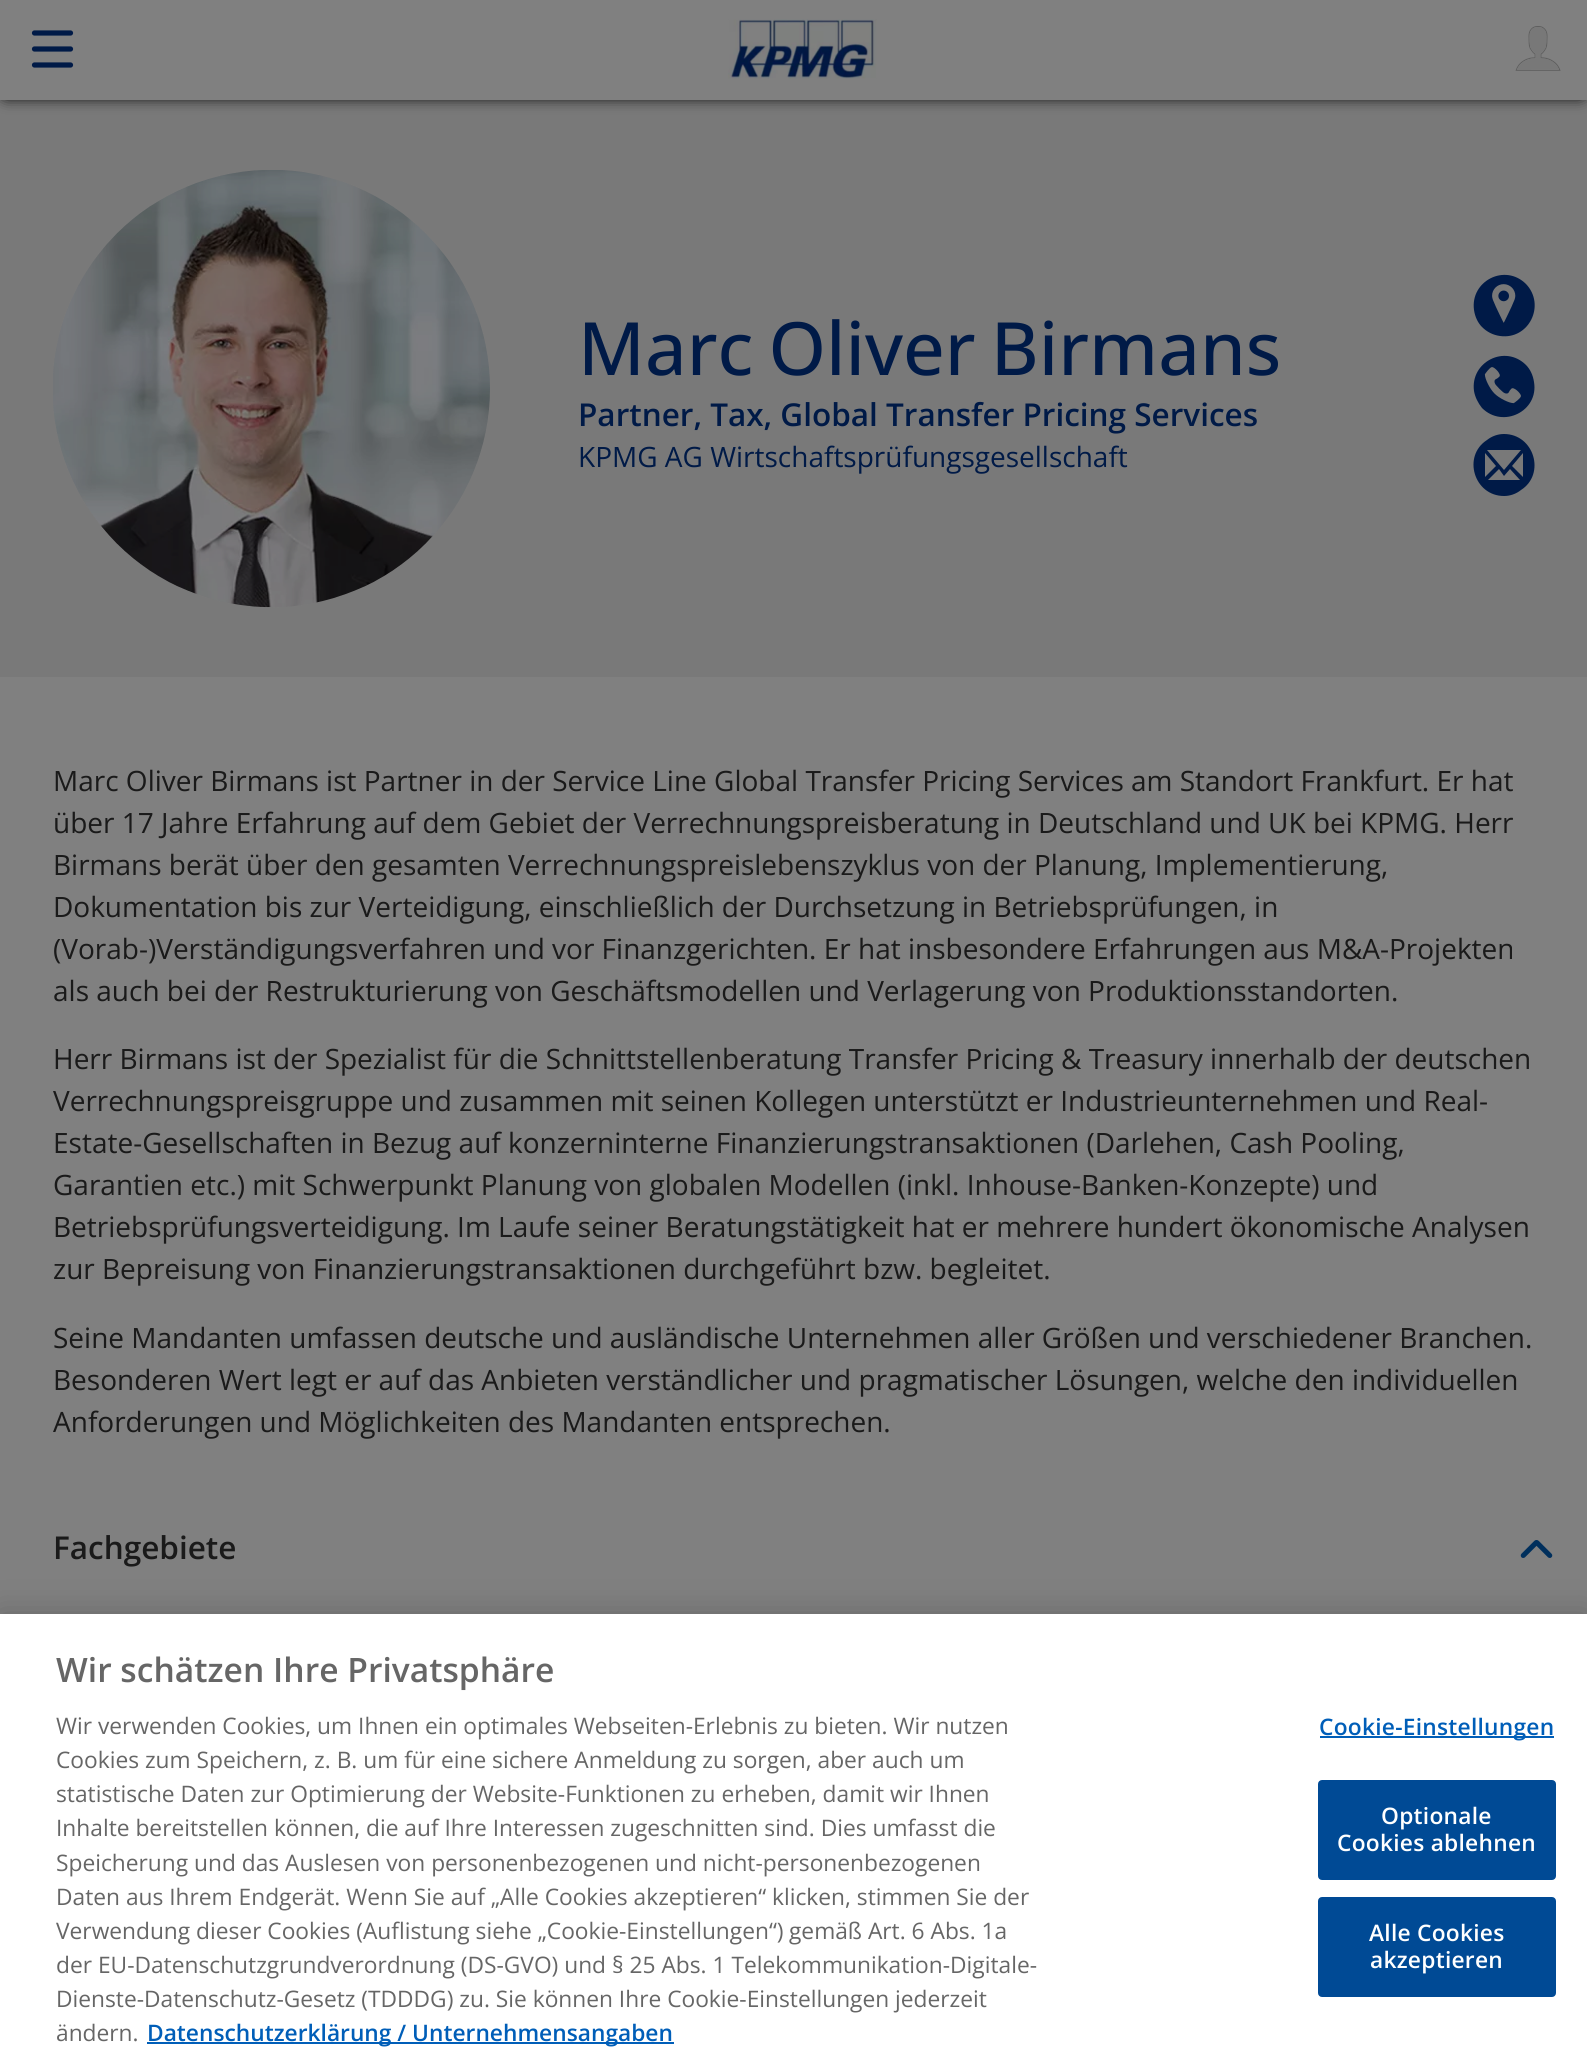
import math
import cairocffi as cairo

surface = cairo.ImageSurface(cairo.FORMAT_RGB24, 1587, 2067)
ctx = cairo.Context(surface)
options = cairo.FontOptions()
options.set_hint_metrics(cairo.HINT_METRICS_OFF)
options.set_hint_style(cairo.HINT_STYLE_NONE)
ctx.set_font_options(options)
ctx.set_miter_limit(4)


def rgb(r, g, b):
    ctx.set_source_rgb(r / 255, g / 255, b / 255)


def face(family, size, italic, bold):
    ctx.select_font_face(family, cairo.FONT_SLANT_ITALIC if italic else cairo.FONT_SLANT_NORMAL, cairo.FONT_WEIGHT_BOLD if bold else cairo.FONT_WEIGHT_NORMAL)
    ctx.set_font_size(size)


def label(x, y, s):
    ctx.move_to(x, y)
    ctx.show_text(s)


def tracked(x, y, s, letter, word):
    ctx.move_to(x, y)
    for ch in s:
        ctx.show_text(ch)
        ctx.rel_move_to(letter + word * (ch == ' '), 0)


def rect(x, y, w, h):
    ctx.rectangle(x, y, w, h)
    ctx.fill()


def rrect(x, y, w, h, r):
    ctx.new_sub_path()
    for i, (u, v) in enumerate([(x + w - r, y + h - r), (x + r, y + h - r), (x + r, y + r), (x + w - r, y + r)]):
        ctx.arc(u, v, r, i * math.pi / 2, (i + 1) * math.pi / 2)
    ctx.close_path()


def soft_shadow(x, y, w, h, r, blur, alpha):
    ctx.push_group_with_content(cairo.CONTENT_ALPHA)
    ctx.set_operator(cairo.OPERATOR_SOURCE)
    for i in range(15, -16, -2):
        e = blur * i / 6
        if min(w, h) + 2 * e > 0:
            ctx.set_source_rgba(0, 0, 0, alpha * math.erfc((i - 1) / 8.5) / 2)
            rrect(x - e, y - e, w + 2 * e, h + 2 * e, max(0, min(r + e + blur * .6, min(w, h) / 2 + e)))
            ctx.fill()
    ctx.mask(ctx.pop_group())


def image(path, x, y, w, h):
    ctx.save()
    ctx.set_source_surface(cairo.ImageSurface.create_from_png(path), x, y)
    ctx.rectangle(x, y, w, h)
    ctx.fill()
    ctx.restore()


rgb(128, 128, 128)
ctx.paint()
rgb(121, 121, 121)
rect(0, 100, 1587, 577)
rgb(0, 0, 0)
soft_shadow(0, -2, 1587, 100, 7, 7, 1)
rgb(128, 128, 128)
rect(0, 0, 1587, 100)
ctx.new_path()
ctx.move_to(34.5, 33)
ctx.line_to(70.5, 33)
ctx.move_to(34.5, 49)
ctx.line_to(70.5, 49)
ctx.move_to(34.5, 65)
ctx.line_to(70.5, 65)
rgb(0, 26, 71)
ctx.set_line_width(5.2)
ctx.set_line_cap(cairo.LINE_CAP_ROUND)
ctx.stroke()
image('image0.png', 728, 19, 149, 60)
image('image1.png', 1515, 26, 46, 45)
image('image2.png', 1517, 27, 42, 43)
image('image3.png', 53, 170, 437, 438)
face('Open Sans Medium', 73.5, 0, 0)
tracked(578, 375, 'Marc Oliver Birmans', 0, -4)
face('Open Sans SemiBold', 31.5, 0, 0)
label(578, 426, 'Partner, Tax, Global Transfer Pricing Services')
face('Open Sans', 28, 0, 0)
label(578, 467, 'KPMG AG Wirtschaftsprüfungsgesellschaft')
ctx.new_path()
ctx.move_to(1526, 284)
ctx.curve_to(1505, 263, 1470, 281, 1474, 310)
ctx.curve_to(1475, 317, 1478, 323, 1482, 327)
ctx.curve_to(1487, 332, 1493, 335, 1500, 336)
ctx.curve_to(1529, 340, 1546, 305, 1526, 284)
ctx.close_path()
ctx.fill()
image('image4.png', 1492, 284, 24, 39)
ctx.new_path()
ctx.move_to(1526, 365)
ctx.curve_to(1505, 344, 1470, 362, 1474, 391)
ctx.curve_to(1475, 397, 1478, 403, 1482, 408)
ctx.curve_to(1503, 429, 1539, 411, 1534, 382)
ctx.curve_to(1533, 375, 1530, 369, 1526, 365)
ctx.close_path()
ctx.fill()
image('image5.png', 1484, 367, 37, 37)
ctx.new_path()
ctx.move_to(1504, 434)
ctx.curve_to(1498, 434, 1492, 436, 1487, 440)
ctx.curve_to(1462, 456, 1474, 496, 1504, 496)
ctx.curve_to(1510, 496, 1516, 494, 1521, 490)
ctx.curve_to(1546, 474, 1534, 434, 1504, 434)
ctx.close_path()
ctx.move_to(1489, 450)
ctx.line_to(1521, 450)
ctx.line_to(1504, 470)
ctx.line_to(1487, 450)
ctx.close_path()
ctx.move_to(1485, 476)
ctx.line_to(1485, 453)
ctx.line_to(1496, 466)
ctx.line_to(1485, 477)
ctx.close_path()
ctx.move_to(1519, 480)
ctx.line_to(1488, 480)
ctx.line_to(1499, 469)
ctx.line_to(1504, 476)
ctx.line_to(1510, 469)
ctx.line_to(1520, 480)
ctx.close_path()
ctx.move_to(1523, 476)
ctx.line_to(1523, 477)
ctx.line_to(1512, 466)
ctx.line_to(1523, 453)
ctx.close_path()
ctx.fill()
rgb(26, 26, 26)
label(53, 791, 'Marc Oliver Birmans ist Partner in der Service Line Global Transfer Pricing Services am Standort Frankfurt. Er hat')
label(53, 833, 'über 17 Jahre Erfahrung auf dem Gebiet der Verrechnungspreisberatung in Deutschland und UK bei KPMG. Herr')
label(53, 875, 'Birmans berät über den gesamten Verrechnungspreislebenszyklus von der Planung, Implementierung,')
label(53, 917, 'Dokumentation bis zur Verteidigung, einschließlich der Durchsetzung in Betriebsprüfungen, in')
label(53, 959, '(Vorab-)Verständigungsverfahren und vor Finanzgerichten. Er hat insbesondere Erfahrungen aus M&A-Projekten')
label(53, 1001, 'als auch bei der Restrukturierung von Geschäftsmodellen und Verlagerung von Produktionsstandorten.')
label(53, 1069, 'Herr Birmans ist der Spezialist für die Schnittstellenberatung Transfer Pricing & Treasury innerhalb der deutschen')
label(53, 1111, 'Verrechnungspreisgruppe und zusammen mit seinen Kollegen unterstützt er Industrieunternehmen und Real-')
label(53, 1153, 'Estate-Gesellschaften in Bezug auf konzerninterne Finanzierungstransaktionen (Darlehen, Cash Pooling,')
label(53, 1195, 'Garantien etc.) mit Schwerpunkt Planung von globalen Modellen (inkl. Inhouse-Banken-Konzepte) und')
label(53, 1237, 'Betriebsprüfungsverteidigung. Im Laufe seiner Beratungstätigkeit hat er mehrere hundert ökonomische Analysen')
label(53, 1279, 'zur Bepreisung von Finanzierungstransaktionen durchgeführt bzw. begleitet.')
label(53, 1348, 'Seine Mandanten umfassen deutsche und ausländische Unternehmen aller Größen und verschiedener Branchen.')
label(53, 1390, 'Besonderen Wert legt er auf das Anbieten verständlicher und pragmatischer Lösungen, welche den individuellen')
label(53, 1432, 'Anforderungen und Möglichkeiten des Mandanten entsprechen.')
face('Open Sans SemiBold', 31.5, 0, 0)
label(53, 1559, 'Fachgebiete')
image('image6.png', 1520, 1540, 33, 18)
rgb(0, 0, 0)
soft_shadow(0, 1614, 1587, 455, 0, 16, 0.2)
rgb(255, 255, 255)
rect(0, 1614, 1587, 453)
face('Open Sans SemiBold', 33.6, 0, 0)
rgb(102, 102, 102)
label(56, 1682, 'Wir schätzen Ihre Privatsphäre')
face('Open Sans', 22.75, 0, 0)
label(56, 1734, 'Wir verwenden Cookies, um Ihnen ein optimales Webseiten-Erlebnis zu bieten. Wir nutzen')
label(56, 1768, 'Cookies zum Speichern, z. B. um für eine sichere Anmeldung zu sorgen, aber auch um')
label(56, 1802, 'statistische Daten zur Optimierung der Website-Funktionen zu erheben, damit wir Ihnen')
label(56, 1836, 'Inhalte bereitstellen können, die auf Ihre Interessen zugeschnitten sind. Dies umfasst die')
label(56, 1871, 'Speicherung und das Auslesen von personenbezogenen und nicht-personenbezogenen')
label(56, 1905, 'Daten aus Ihrem Endgerät. Wenn Sie auf „Alle Cookies akzeptieren“ klicken, stimmen Sie der')
label(56, 1939, 'Verwendung dieser Cookies (Auflistung siehe „Cookie-Einstellungen“)')
label(789, 1939, 'gemäß Art. 6 Abs. 1a')
label(56, 1973, 'der EU-Datenschutzgrundverordnung (DS-GVO) und § 25 Abs. 1 Telekommunikation-Digitale-')
label(56, 2007, 'Dienste-Datenschutz-Gesetz (TDDDG) zu. Sie können Ihre Cookie-Einstellungen jederzeit')
label(56, 2041, 'ändern.')
rgb(0, 94, 184)
rect(147, 2042, 527, 2)
face('Open Sans SemiBold', 22.75, 0, 0)
label(147, 2041, 'Datenschutzerklärung / Unternehmensangaben')
rect(1320, 1736, 234, 2)
tracked(1319, 1735, 'Cookie-Einstellungen', 0.25, 0)
rgb(0, 74, 149)
rrect(1319, 1781, 236, 98, 3)
ctx.fill_preserve()
ctx.set_line_width(2)
ctx.set_line_cap(cairo.LINE_CAP_BUTT)
ctx.stroke()
rgb(255, 255, 255)
tracked(1381, 1824, 'Optionale', 0.25, 0)
tracked(1337, 1851, 'Cookies ablehnen', 0.25, 0)
rgb(0, 74, 149)
rrect(1319, 1898, 236, 98, 3)
ctx.fill_preserve()
ctx.stroke()
rgb(255, 255, 255)
tracked(1369, 1941, 'Alle Cookies', 0.25, 0)
tracked(1370, 1968, 'akzeptieren', 0.25, 0)
surface.write_to_png('render.png')
